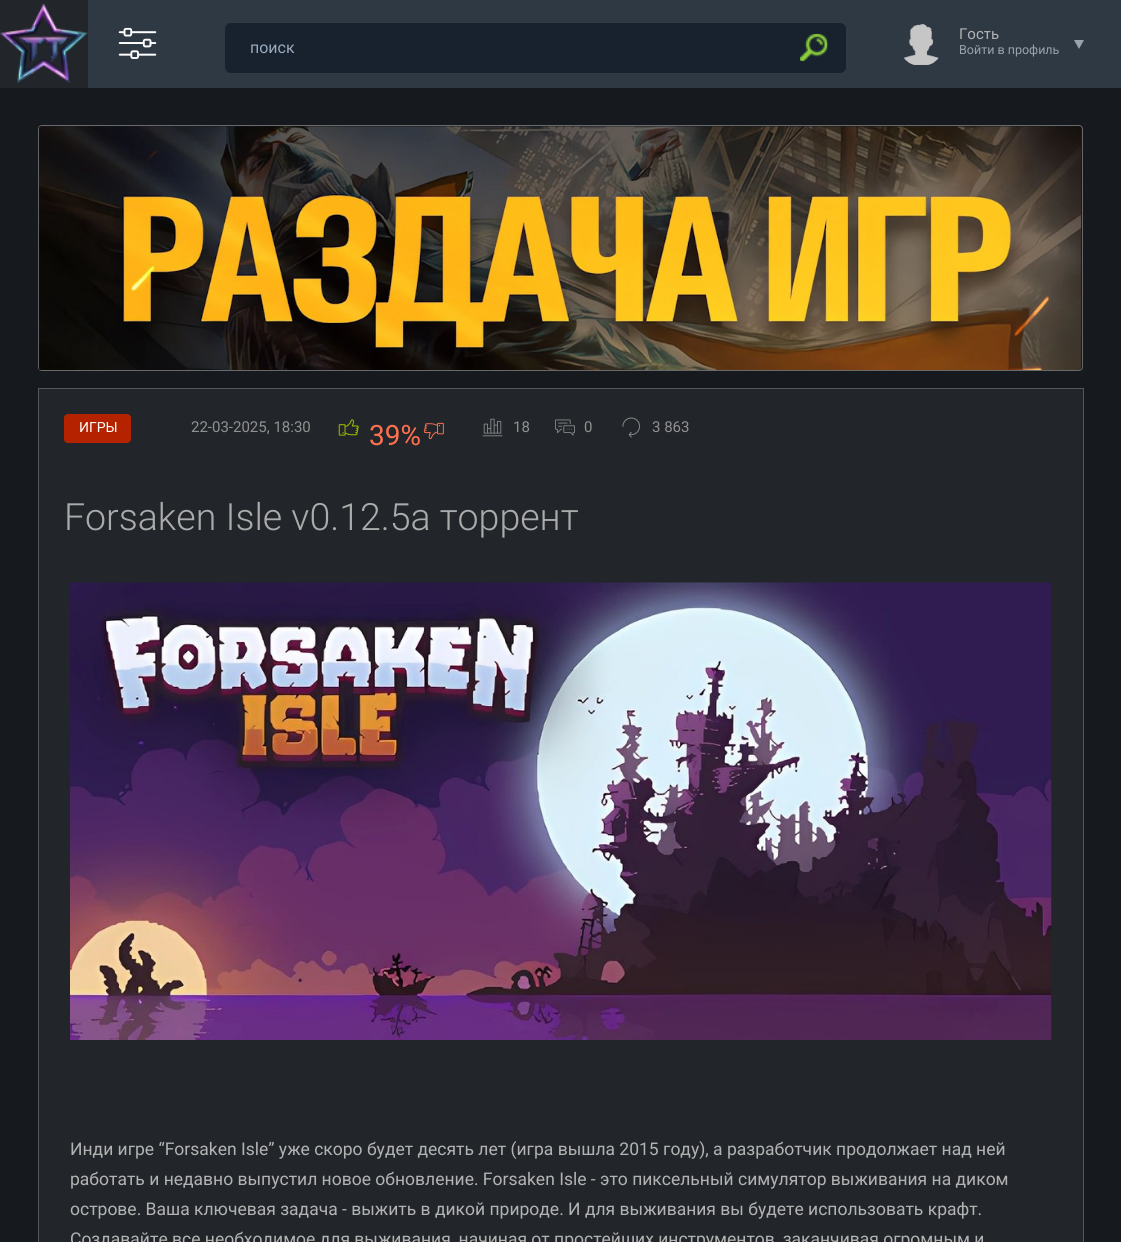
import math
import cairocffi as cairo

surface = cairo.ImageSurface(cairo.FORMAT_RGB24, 1121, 1242)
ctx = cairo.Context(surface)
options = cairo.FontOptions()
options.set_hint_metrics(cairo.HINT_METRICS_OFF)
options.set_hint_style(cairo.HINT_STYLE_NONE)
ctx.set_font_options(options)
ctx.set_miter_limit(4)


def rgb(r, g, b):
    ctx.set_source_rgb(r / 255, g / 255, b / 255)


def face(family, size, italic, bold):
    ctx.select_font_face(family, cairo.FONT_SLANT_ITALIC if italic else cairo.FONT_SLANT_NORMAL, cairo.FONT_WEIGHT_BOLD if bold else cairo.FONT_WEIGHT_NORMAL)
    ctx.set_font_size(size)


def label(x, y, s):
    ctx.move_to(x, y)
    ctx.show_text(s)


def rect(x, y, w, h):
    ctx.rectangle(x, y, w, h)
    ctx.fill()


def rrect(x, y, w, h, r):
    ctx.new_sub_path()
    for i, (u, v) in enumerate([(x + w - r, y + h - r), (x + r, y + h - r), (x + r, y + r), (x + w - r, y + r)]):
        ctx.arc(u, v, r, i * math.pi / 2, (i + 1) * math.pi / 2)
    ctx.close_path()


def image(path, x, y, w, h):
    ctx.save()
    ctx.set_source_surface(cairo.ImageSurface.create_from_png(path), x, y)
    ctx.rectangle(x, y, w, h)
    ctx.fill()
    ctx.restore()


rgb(22, 26, 30)
ctx.paint()
rgb(47, 57, 68)
rect(88, 0, 1033, 88)
rgb(34, 38, 42)
rect(0, 0, 88, 88)
image('image0.png', 0, 3, 88, 80)
image('image1.png', 118, 27, 39, 32)
rgb(24, 34, 46)
rrect(225, 23, 621, 50, 6)
ctx.fill()
face('Roboto', 16, 0, 0)
rgb(155, 171, 189)
label(250, 53, 'поиск')
image('image2.png', 800, 33, 28, 29)
image('image3.png', 903, 24, 36, 41)
face('Roboto', 15, 0, 0)
rgb(179, 179, 179)
label(959, 39, 'Гость')
face('Roboto', 12.5, 0, 0)
rgb(154, 162, 172)
label(959, 54, 'Войти в профиль')
rgb(154, 163, 172)
ctx.new_path()
ctx.move_to(1074, 40)
ctx.line_to(1084, 40)
ctx.line_to(1079, 49)
ctx.close_path()
ctx.fill()
rrect(38.5, 125.5, 1044, 245, 3.5)
rgb(105, 105, 105)
ctx.set_line_width(1)
ctx.stroke()
image('image4.png', 38, 126, 1044, 244)
rgb(34, 38, 42)
ctx.rectangle(38.5, 388.5, 1045, 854)
ctx.fill_preserve()
rgb(87, 87, 87)
ctx.stroke()
rgb(180, 34, 0)
rrect(64, 414, 67, 29, 4)
ctx.fill()
face('Roboto', 14, 0, 0)
rgb(255, 255, 255)
label(79, 432, 'ИГРЫ')
face('Roboto', 15, 0, 0)
rgb(145, 145, 145)
label(191, 432, '22-03-2025, 18:30')
image('image5.png', 338, 419, 21, 17)
face('Roboto', 28, 0, 0)
rgb(255, 112, 79)
label(369, 445, '39%')
image('image6.png', 423, 422, 21, 18)
image('image7.png', 482, 418, 21, 19)
face('Roboto', 15, 0, 0)
rgb(145, 145, 145)
label(513, 432, '18')
image('image8.png', 555, 419, 20, 17)
label(584, 432, '0')
image('image9.png', 622, 417, 19, 21)
label(652, 432, '3 863')
face('Roboto Light', 37.5, 0, 0)
rgb(171, 171, 171)
label(64, 530, 'Forsaken Isle v0.12.5a торрент')
image('image10.png', 70, 582, 982, 458)
face('Roboto', 17.5, 0, 0)
rgb(179, 179, 179)
label(70, 1155, 'Инди игре “Forsaken Isle” уже скоро будет десять лет (игра вышла 2015 году), а разработчик продолжает над ней')
label(70, 1185, 'работать и недавно выпустил новое обновление. Forsaken Isle - это пиксельный симулятор выживания на диком')
label(70, 1215, 'острове. Ваша ключевая задача - выжить в дикой природе. И для выживания вы будете использовать крафт.')
label(70, 1245, 'Создавайте все необходимое для выживания, начиная от простейших инструментов, заканчивая огромным и')
surface.write_to_png('render.png')
